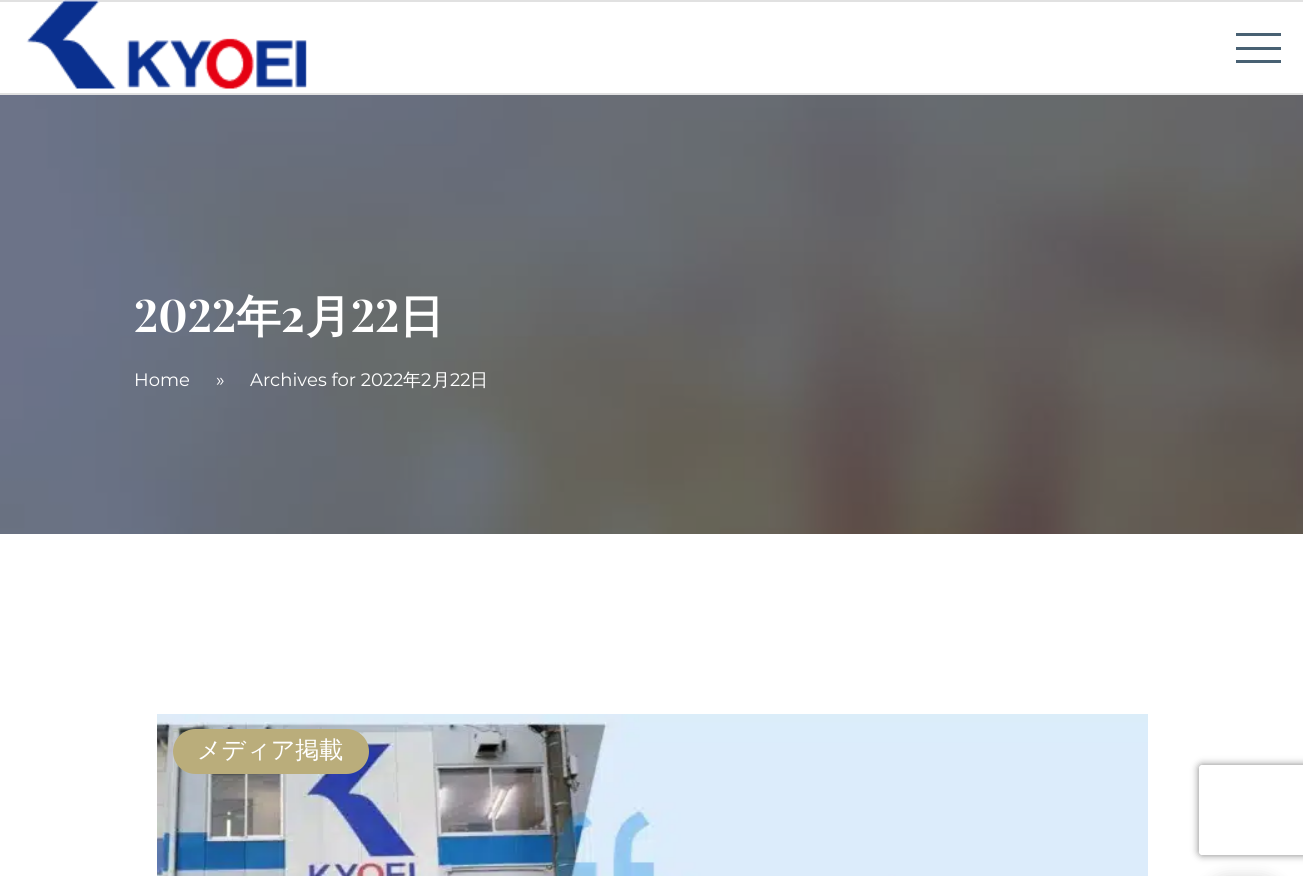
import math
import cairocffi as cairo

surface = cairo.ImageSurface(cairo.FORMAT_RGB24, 1303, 876)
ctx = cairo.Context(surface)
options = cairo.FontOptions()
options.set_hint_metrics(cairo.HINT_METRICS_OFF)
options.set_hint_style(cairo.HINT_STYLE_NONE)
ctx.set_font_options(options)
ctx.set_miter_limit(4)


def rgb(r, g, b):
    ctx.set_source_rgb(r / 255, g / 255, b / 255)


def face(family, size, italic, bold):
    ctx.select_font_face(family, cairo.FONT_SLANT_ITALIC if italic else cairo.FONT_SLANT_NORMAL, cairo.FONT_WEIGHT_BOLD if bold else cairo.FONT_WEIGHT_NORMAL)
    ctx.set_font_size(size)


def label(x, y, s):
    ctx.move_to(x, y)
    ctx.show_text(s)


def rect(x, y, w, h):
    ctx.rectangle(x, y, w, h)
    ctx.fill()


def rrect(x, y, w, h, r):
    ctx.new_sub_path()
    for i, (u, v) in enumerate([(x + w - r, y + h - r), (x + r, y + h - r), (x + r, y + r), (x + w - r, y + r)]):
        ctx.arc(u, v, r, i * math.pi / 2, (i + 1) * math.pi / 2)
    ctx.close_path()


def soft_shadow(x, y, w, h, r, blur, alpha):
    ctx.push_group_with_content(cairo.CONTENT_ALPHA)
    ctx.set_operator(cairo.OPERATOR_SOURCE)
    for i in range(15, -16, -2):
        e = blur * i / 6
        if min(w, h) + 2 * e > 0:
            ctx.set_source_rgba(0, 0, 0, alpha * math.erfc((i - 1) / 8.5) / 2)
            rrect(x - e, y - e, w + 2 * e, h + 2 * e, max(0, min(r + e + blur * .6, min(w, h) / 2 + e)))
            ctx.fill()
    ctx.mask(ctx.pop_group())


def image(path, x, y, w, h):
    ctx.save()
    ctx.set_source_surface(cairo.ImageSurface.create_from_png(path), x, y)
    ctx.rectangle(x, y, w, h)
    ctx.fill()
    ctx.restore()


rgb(255, 255, 255)
ctx.paint()
rgb(225, 225, 225)
rect(0, 0, 1303, 2)
image('image0.png', 26, 0, 281, 89)
rgb(72, 97, 115)
rect(1236, 47, 45, 3)
rect(1236, 33, 45, 3)
rect(1236, 60, 45, 3)
rgb(225, 225, 225)
rect(0, 93, 1303, 2)
image('image1.png', 0, 95, 1303, 439)
face('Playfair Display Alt', 45, 0, 1)
rgb(255, 255, 255)
label(134, 332, '2022')
face('WenQuanYi Zen Hei', 45, 0, 1)
label(236, 332, '年')
face('Playfair Display', 45, 0, 1)
label(281, 332, '2')
face('WenQuanYi Zen Hei', 45, 0, 1)
label(306, 332, '月')
face('Playfair Display Alt', 45, 0, 1)
label(351, 332, '22')
face('WenQuanYi Zen Hei', 45, 0, 1)
label(399, 332, '日')
face('Montserrat', 18, 0, 0)
label(134, 386, 'Home')
label(216, 386, '»')
label(250, 386, 'Archives for 2022')
face('WenQuanYi Zen Hei Medium', 18, 0, 0)
label(403, 386, '年')
face('Montserrat', 18, 0, 0)
label(421, 386, '2')
face('WenQuanYi Zen Hei Medium', 18, 0, 0)
label(432, 386, '月')
face('Montserrat', 18, 0, 0)
label(450, 386, '22')
face('WenQuanYi Zen Hei Medium', 18, 0, 0)
label(470, 386, '日')
image('image2.png', 157, 714, 991, 162)
rgb(186, 173, 123)
rrect(173, 729, 196, 45, 22.5)
ctx.fill()
face('WenQuanYi Zen Hei Medium', 24, 0, 0)
rgb(255, 255, 255)
label(197, 758, 'メディア掲載')
ctx.save()
ctx.set_fill_rule(cairo.FILL_RULE_EVEN_ODD)
ctx.new_path()
ctx.move_to(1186, 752)
ctx.line_to(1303, 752)
ctx.line_to(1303, 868)
ctx.line_to(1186, 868)
ctx.close_path()
ctx.move_to(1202, 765)
ctx.line_to(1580, 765)
ctx.curve_to(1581.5, 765, 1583, 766.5, 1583, 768)
ctx.line_to(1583, 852)
ctx.curve_to(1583, 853.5, 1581.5, 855, 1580, 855)
ctx.line_to(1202, 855)
ctx.curve_to(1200.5, 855, 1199, 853.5, 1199, 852)
ctx.line_to(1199, 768)
ctx.curve_to(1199, 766.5, 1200.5, 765, 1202, 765)
ctx.close_path()
ctx.clip()
rgb(128, 128, 128)
soft_shadow(1199, 765, 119, 90, 3, 4, 1)
ctx.restore()
rgb(0, 0, 0)
soft_shadow(1199, 876, 90, 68, 45, 7.5, 0.14)
surface.write_to_png('render.png')
